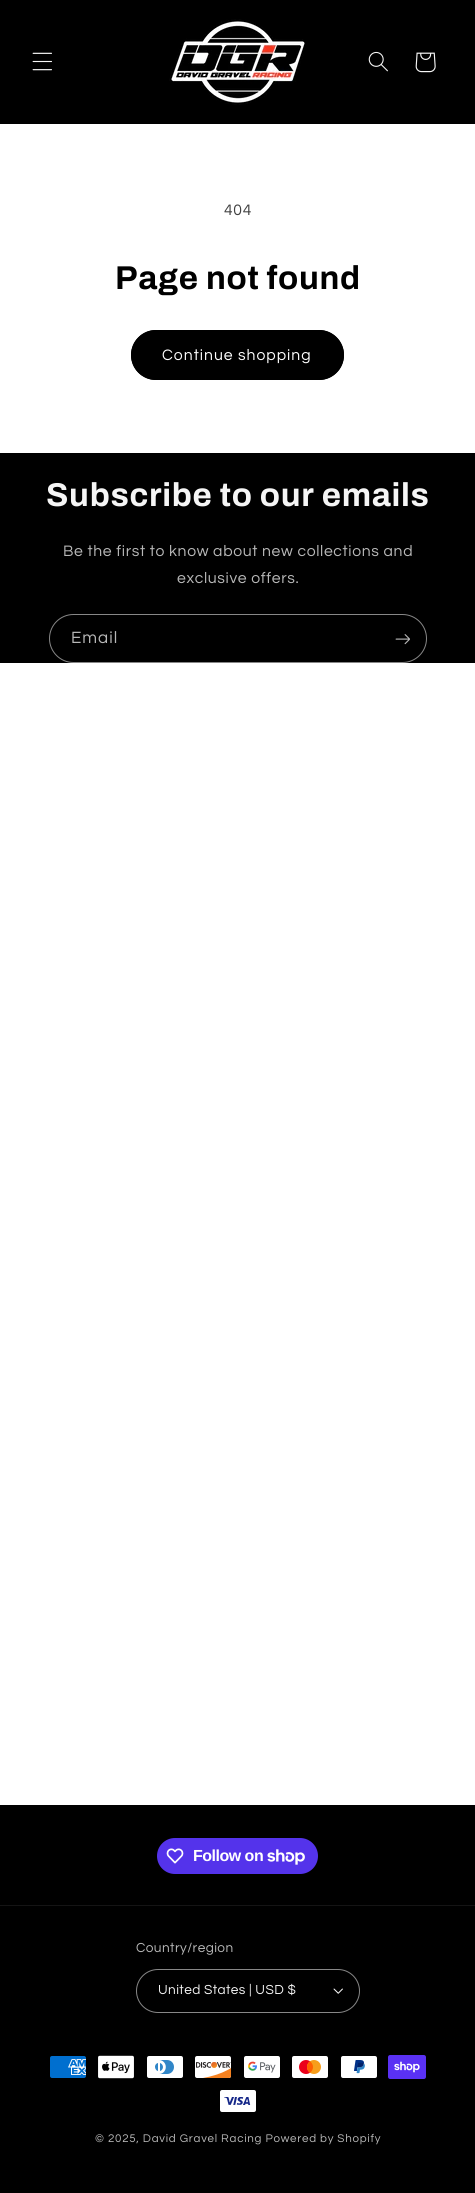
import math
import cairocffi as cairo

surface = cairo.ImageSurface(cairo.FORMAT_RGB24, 475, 2193)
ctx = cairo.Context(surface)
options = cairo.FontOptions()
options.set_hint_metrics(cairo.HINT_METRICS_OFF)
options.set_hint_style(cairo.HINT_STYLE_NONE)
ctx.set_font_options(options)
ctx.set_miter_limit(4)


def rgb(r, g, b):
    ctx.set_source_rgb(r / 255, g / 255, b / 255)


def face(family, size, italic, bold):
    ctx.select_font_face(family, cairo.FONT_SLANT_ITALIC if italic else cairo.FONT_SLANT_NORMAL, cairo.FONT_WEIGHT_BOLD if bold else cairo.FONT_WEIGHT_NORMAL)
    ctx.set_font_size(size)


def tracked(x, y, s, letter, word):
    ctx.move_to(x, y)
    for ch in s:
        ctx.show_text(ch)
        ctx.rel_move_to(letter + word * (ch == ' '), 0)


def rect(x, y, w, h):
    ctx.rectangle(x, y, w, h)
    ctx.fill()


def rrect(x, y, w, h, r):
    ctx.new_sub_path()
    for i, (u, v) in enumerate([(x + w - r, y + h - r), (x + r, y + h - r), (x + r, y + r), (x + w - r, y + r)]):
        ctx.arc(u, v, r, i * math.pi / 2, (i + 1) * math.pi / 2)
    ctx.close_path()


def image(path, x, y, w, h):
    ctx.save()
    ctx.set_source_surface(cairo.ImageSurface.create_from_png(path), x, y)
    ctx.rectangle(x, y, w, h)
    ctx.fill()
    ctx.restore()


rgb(255, 255, 255)
ctx.paint()
rgb(0, 0, 0)
rect(0, 0, 475, 124)
image('image0.png', 32, 52, 20, 19)
image('image1.png', 169, 19, 136, 86)
image('image2.png', 368, 51, 20, 21)
image('image3.png', 415, 52, 21, 21)
face('Questrial', 15.75, 0, 0)
rgb(64, 64, 64)
tracked(224, 215, '404', 0.65, 0)
face('Archivo', 33, 0, 1)
rgb(0, 0, 0)
tracked(115, 289, 'Page not found', 0.7, 0)
rrect(131, 330, 213, 50, 25)
ctx.fill()
rrect(131.5, 330.5, 212, 49, 24.5)
ctx.set_line_width(1)
ctx.stroke()
face('Questrial', 15.75, 0, 0)
rgb(255, 255, 255)
tracked(162, 360, 'Continue shopping', 1, 0)
rgb(0, 0, 0)
rect(0, 453, 475, 210)
face('Archivo', 33, 0, 1)
rgb(245, 245, 245)
tracked(46, 506, 'Subscribe to our emails', 0.7, 0)
face('Questrial', 15.75, 0, 0)
rgb(184, 184, 184)
tracked(63, 556, 'Be the first to know about new collections and', 0.65, 0)
tracked(177, 583, 'exclusive offers.', 0.65, 0)
rrect(49.5, 614.5, 377, 48, 24)
rgb(135, 135, 135)
ctx.stroke()
face('Questrial', 17, 0, 0)
rgb(184, 184, 184)
tracked(71, 643, 'Email', 1, 0)
image('image4.png', 395, 634, 15, 11)
rgb(0, 0, 0)
rect(0, 1805, 475, 388)
rgb(84, 51, 235)
rrect(157, 1838, 161, 36, 18)
ctx.fill()
image('image5.png', 166, 1848, 18, 16)
face('Liberation Sans', 16, 0, 1)
rgb(255, 255, 255)
tracked(193, 1861, 'Follow on', -0.5, 0)
image('image6.png', 267, 1849, 38, 16)
rgb(20, 20, 20)
rect(0, 1905, 475, 1)
face('Questrial', 13.6, 0, 0)
rgb(184, 184, 184)
tracked(136, 1952, 'Country/region', 0.4, 0)
image('image7.png', 333, 1988, 10, 6)
rrect(136.5, 1969.5, 223, 43, 21.5)
rgb(135, 135, 135)
ctx.stroke()
rgb(245, 245, 245)
tracked(158, 1994, 'United States | USD $', 0.4, 0)
image('image8.png', 50, 2056, 36, 22)
image('image9.png', 98, 2055, 36, 24)
image('image10.png', 147, 2056, 36, 22)
image('image11.png', 195, 2056, 37, 22)
image('image12.png', 244, 2056, 36, 22)
image('image13.png', 292, 2056, 36, 22)
image('image14.png', 341, 2056, 36, 22)
image('image15.png', 388, 2055, 38, 24)
image('image16.png', 220, 2090, 36, 22)
face('Questrial', 11.55, 0, 0)
rgb(184, 184, 184)
tracked(95, 2142, '© 2025, David Gravel Racing Powered by Shopify', 0.75, 0)
surface.write_to_png('render.png')
